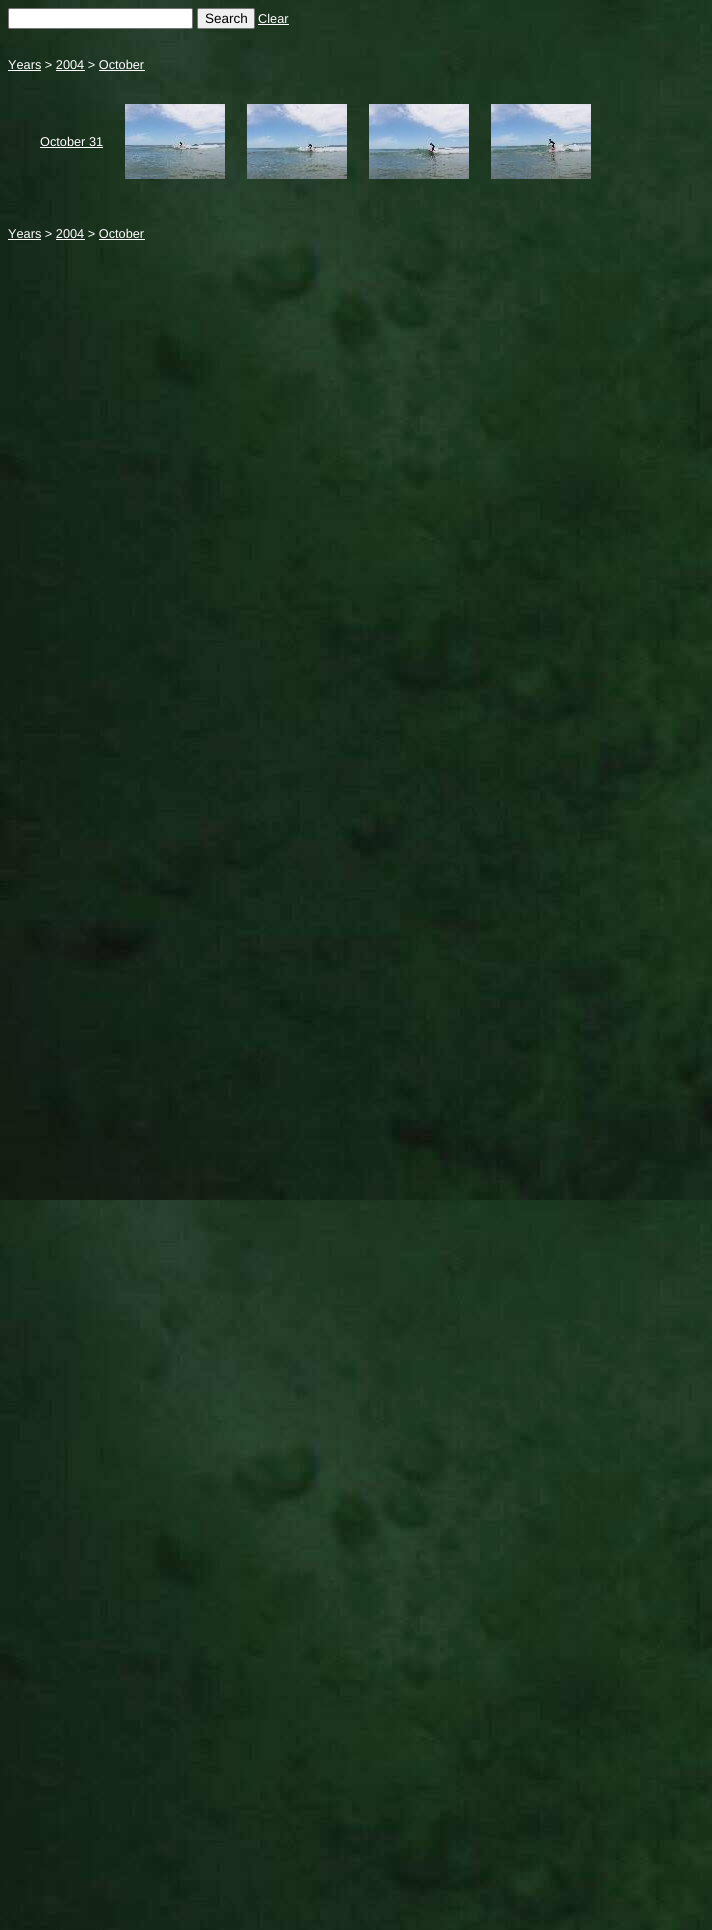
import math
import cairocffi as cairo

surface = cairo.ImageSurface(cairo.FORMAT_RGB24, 712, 1930)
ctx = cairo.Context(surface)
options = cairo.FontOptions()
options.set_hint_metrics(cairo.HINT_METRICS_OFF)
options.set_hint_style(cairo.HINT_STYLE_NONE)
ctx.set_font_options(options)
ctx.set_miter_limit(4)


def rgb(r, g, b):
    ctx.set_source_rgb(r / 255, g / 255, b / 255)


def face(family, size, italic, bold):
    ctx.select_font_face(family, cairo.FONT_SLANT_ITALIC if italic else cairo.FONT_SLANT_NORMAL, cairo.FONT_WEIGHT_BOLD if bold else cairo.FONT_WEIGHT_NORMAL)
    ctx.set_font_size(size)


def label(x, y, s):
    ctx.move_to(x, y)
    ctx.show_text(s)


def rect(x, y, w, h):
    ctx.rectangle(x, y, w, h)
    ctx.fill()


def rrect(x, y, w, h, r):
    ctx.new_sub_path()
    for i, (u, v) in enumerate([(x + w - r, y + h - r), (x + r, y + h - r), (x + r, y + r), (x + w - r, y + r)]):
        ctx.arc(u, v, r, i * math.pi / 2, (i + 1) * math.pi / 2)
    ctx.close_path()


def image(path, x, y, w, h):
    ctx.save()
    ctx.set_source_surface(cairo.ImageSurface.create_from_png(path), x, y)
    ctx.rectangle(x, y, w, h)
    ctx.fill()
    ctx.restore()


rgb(255, 255, 255)
ctx.paint()
image('image0.png', 0, 0, 712, 1930)
rgb(255, 255, 255)
rrect(8.5, 8.5, 184, 20, 1.5)
ctx.fill_preserve()
rgb(118, 118, 118)
ctx.set_line_width(1)
ctx.stroke()
rgb(239, 239, 239)
rrect(197.5, 8.5, 57, 20, 1.5)
ctx.fill_preserve()
rgb(118, 118, 118)
ctx.stroke()
face('Liberation Sans', 13.5, 0, 0)
rgb(0, 0, 0)
label(205, 23, 'Search')
face('Liberation Sans', 12.75, 0, 0)
rgb(255, 255, 255)
label(258, 23, 'Clear')
rect(258, 24, 31, 1)
label(8, 69, 'Years > 2004 > October')
rect(8, 70, 33, 1)
rect(56, 70, 29, 1)
rect(99, 70, 46, 1)
label(40, 146, 'October 31')
rect(40, 147, 63, 1)
image('image1.png', 125, 104, 100, 75)
image('image2.png', 247, 104, 100, 75)
image('image3.png', 369, 104, 100, 75)
image('image4.png', 491, 104, 100, 75)
label(8, 238, 'Years > 2004 > October')
rect(8, 239, 33, 1)
rect(56, 239, 29, 1)
rect(99, 239, 46, 1)
surface.write_to_png('render.png')
